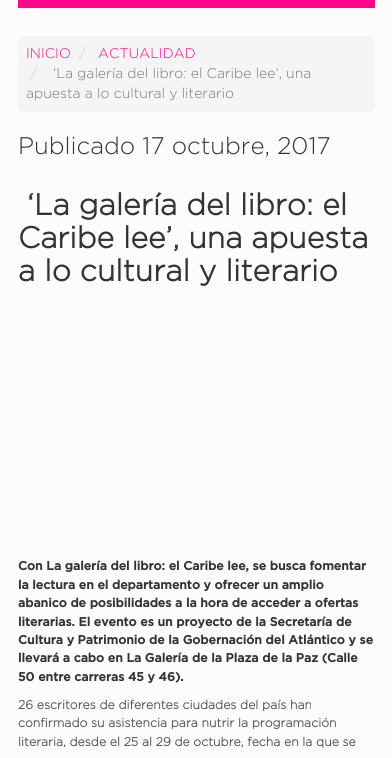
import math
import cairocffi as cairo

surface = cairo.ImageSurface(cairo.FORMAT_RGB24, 392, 758)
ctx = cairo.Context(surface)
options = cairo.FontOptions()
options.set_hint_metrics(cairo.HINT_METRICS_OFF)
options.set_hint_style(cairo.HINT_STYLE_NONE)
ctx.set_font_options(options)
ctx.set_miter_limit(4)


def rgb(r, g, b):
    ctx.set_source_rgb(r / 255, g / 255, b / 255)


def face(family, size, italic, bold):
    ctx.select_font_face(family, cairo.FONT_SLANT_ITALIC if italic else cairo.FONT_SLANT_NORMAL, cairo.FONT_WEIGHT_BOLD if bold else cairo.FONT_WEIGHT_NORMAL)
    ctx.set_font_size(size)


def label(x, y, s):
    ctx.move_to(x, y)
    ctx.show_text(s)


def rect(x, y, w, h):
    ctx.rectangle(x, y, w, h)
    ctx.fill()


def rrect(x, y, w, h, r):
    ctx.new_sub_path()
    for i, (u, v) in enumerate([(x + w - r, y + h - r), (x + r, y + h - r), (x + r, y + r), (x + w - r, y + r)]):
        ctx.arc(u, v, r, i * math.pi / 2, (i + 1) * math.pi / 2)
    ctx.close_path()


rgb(252, 252, 252)
ctx.paint()
rgb(255, 7, 136)
rect(18, 0, 357, 8)
rgb(245, 245, 245)
rrect(18, 36, 357, 76, 4)
ctx.fill()
face('Gotham Light', 14, 0, 0)
rgb(255, 7, 136)
label(26, 58, 'INICIO')
rgb(204, 204, 204)
label(79, 58, '/')
rgb(255, 7, 136)
label(98, 58, 'ACTUALIDAD')
rgb(204, 204, 204)
label(30, 78, '/')
rgb(115, 118, 120)
label(53, 78, '‘La galería del libro: el Caribe lee’, una')
label(26, 98, 'apuesta a lo cultural y literario')
face('Gotham Light', 24, 0, 0)
rgb(51, 51, 51)
label(18, 154, 'Publicado 17 octubre, 2017')
face('Gotham', 30, 0, 1)
label(27, 215, '‘La galería del libro: el')
label(18, 248, 'Caribe lee’, una apuesta')
label(18, 281, 'a lo cultural y literario')
face('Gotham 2', 12.25, 0, 1)
label(18, 570, 'Con La galería del libro: el Caribe lee, se busca fomentar')
label(18, 589, 'la lectura en el departamento y ofrecer un amplio')
label(18, 607, 'abanico de posibilidades a la hora de acceder a ofertas')
label(18, 626, 'literarias. El evento es un proyecto de la Secretaría de')
label(18, 644, 'Cultura y Patrimonio de la Gobernación del Atlántico y se')
label(18, 662, 'llevará a cabo en La Galería de la Plaza de la Paz (Calle')
label(18, 681, '50 entre carreras 45 y 46).')
face('Gotham', 12.25, 0, 1)
rgb(83, 86, 88)
label(18, 709, '26 escritores de diferentes ciudades del país han')
label(18, 727, 'confirmado su asistencia para nutrir la programación')
label(18, 746, 'literaria, desde el 25 al 29 de octubre, fecha en la que se')
surface.write_to_png('render.png')
